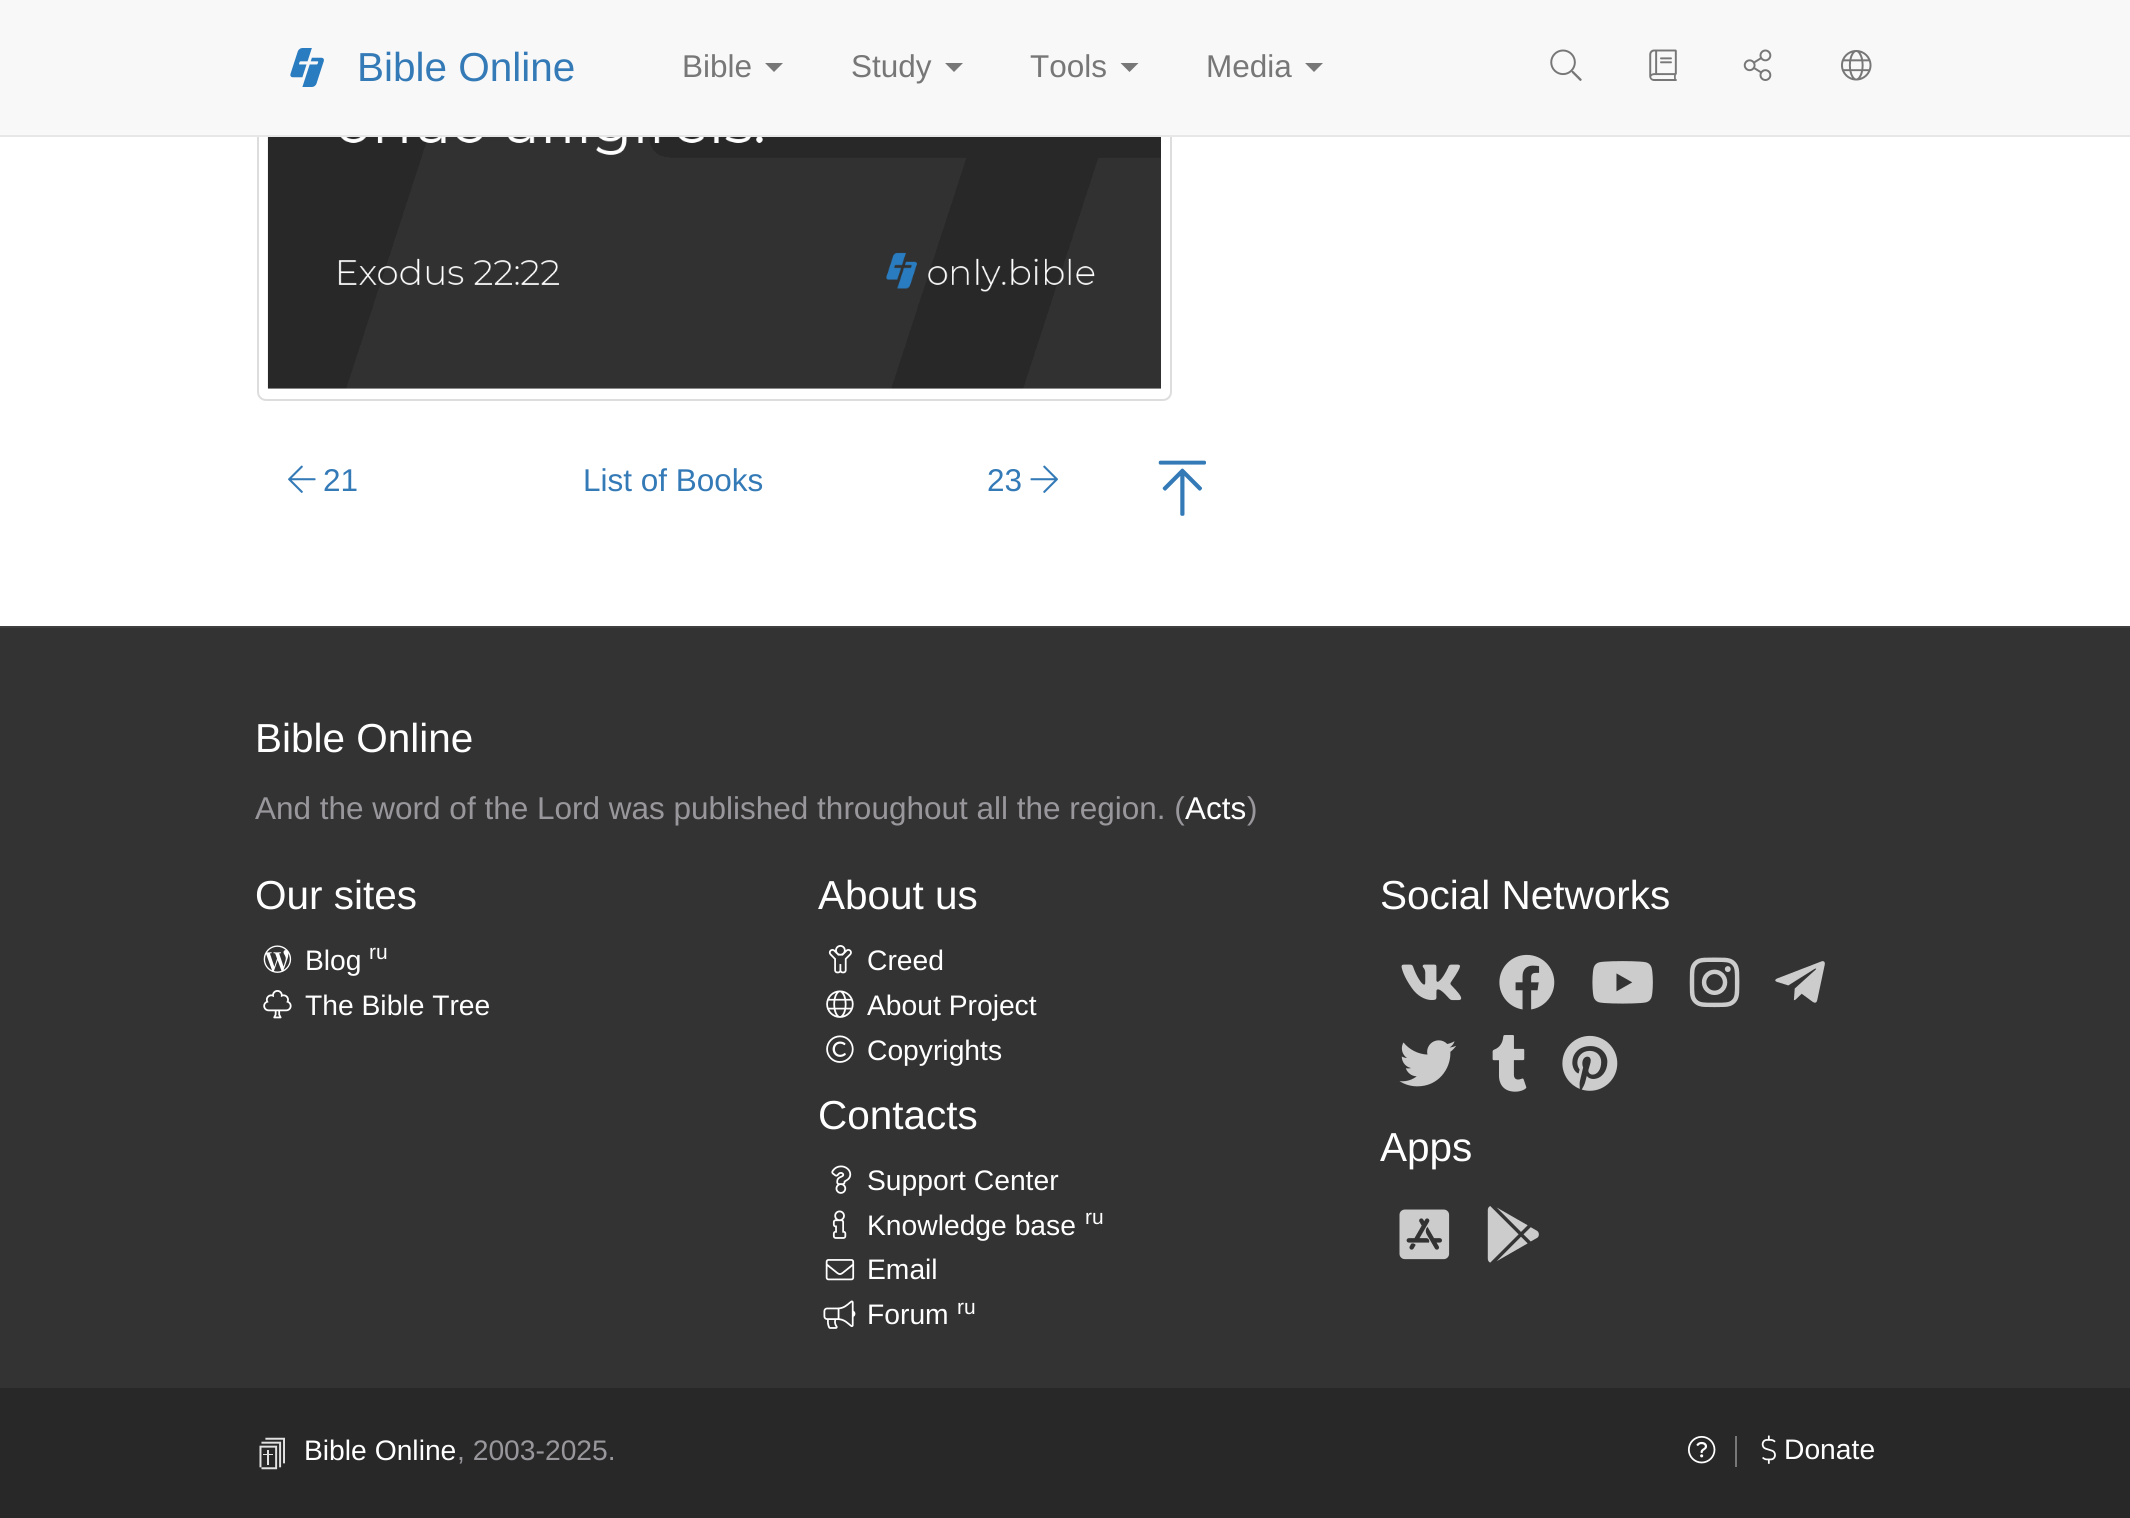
import math
import cairocffi as cairo

surface = cairo.ImageSurface(cairo.FORMAT_RGB24, 2130, 1518)
ctx = cairo.Context(surface)
options = cairo.FontOptions()
options.set_hint_metrics(cairo.HINT_METRICS_OFF)
options.set_hint_style(cairo.HINT_STYLE_NONE)
ctx.set_font_options(options)
ctx.set_miter_limit(4)


def rgb(r, g, b):
    ctx.set_source_rgb(r / 255, g / 255, b / 255)


def face(family, size, italic, bold):
    ctx.select_font_face(family, cairo.FONT_SLANT_ITALIC if italic else cairo.FONT_SLANT_NORMAL, cairo.FONT_WEIGHT_BOLD if bold else cairo.FONT_WEIGHT_NORMAL)
    ctx.set_font_size(size)


def label(x, y, s):
    ctx.move_to(x, y)
    ctx.show_text(s)


def rect(x, y, w, h):
    ctx.rectangle(x, y, w, h)
    ctx.fill()


def rrect(x, y, w, h, r):
    ctx.new_sub_path()
    for i, (u, v) in enumerate([(x + w - r, y + h - r), (x + r, y + h - r), (x + r, y + r), (x + w - r, y + r)]):
        ctx.arc(u, v, r, i * math.pi / 2, (i + 1) * math.pi / 2)
    ctx.close_path()


def image(path, x, y, w, h):
    ctx.save()
    ctx.set_source_surface(cairo.ImageSurface.create_from_png(path), x, y)
    ctx.rectangle(x, y, w, h)
    ctx.fill()
    ctx.restore()


rgb(255, 255, 255)
ctx.paint()
rrect(258, -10, 913, 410, 8)
rgb(221, 221, 221)
ctx.stroke()
rgb(248, 248, 248)
rect(0, 0, 2130, 135)
rgb(231, 231, 231)
rect(0, 135, 2130, 2)
image('image0.png', 290, 48, 34, 39)
face('Liberation Sans', 40.5, 0, 0)
rgb(51, 122, 183)
label(357, 81, 'Bible Online')
face('Liberation Sans', 31.5, 0, 0)
rgb(119, 119, 119)
label(682, 77, 'Bible')
ctx.new_path()
ctx.move_to(765, 63)
ctx.line_to(783, 63)
ctx.line_to(774, 72)
ctx.close_path()
ctx.fill()
label(851, 77, 'Study')
ctx.new_path()
ctx.move_to(945, 63)
ctx.line_to(963, 63)
ctx.line_to(954, 72)
ctx.close_path()
ctx.fill()
label(1030, 77, 'Tools')
ctx.new_path()
ctx.move_to(1120.5, 63)
ctx.line_to(1138.5, 63)
ctx.line_to(1129.5, 72)
ctx.close_path()
ctx.fill()
label(1206, 77, 'Media')
ctx.new_path()
ctx.move_to(1305, 63)
ctx.line_to(1323, 63)
ctx.line_to(1314, 72)
ctx.close_path()
ctx.fill()
image('image1.png', 1550, 49, 32, 32)
image('image2.png', 1649, 49, 28, 32)
image('image3.png', 1743, 49, 29, 32)
image('image4.png', 1841, 50, 31, 31)
image('image5.png', 267, 137, 894, 252)
image('image6.png', 288, 465, 28, 28)
rgb(51, 122, 183)
label(323, 491, '21')
label(583, 491, 'List of Books')
label(987, 491, '23')
image('image7.png', 1030, 465, 28, 28)
image('image8.png', 1158, 460, 48, 56)
rgb(51, 51, 51)
rect(0, 628, 2130, 760)
rgb(63, 63, 63)
rect(0, 626, 2130, 2)
face('Liberation Sans', 40.5, 0, 0)
rgb(255, 255, 255)
label(255, 752, 'Bible Online')
face('Liberation Sans', 31.5, 0, 0)
rgb(153, 151, 156)
label(255, 819, 'And the word of the Lord was published throughout all the region. (')
rgb(255, 255, 255)
label(1185, 819, 'Acts')
rgb(153, 151, 156)
label(1247, 819, ')')
face('Liberation Sans', 40.5, 0, 0)
rgb(255, 255, 255)
label(255, 909, 'Our sites')
image('image9.png', 263, 945, 29, 28)
face('Liberation Sans', 28.25, 0, 0)
label(305, 970, 'Blog')
face('Liberation Sans', 21, 0, 0)
label(369, 959, 'ru')
image('image10.png', 263, 990, 29, 29)
face('Liberation Sans', 28.25, 0, 0)
label(305, 1015, 'The Bible Tree')
face('Liberation Sans', 40.5, 0, 0)
label(818, 909, 'About us')
image('image11.png', 828, 945, 24, 29)
face('Liberation Sans', 28.25, 0, 0)
label(867, 970, 'Creed')
image('image12.png', 826, 990, 28, 28)
label(867, 1015, 'About Project')
image('image13.png', 826, 1035, 28, 28)
label(867, 1060, 'Copyrights')
face('Liberation Sans', 40.5, 0, 0)
label(818, 1129, 'Contacts')
image('image14.png', 831, 1165, 21, 29)
face('Liberation Sans', 28.25, 0, 0)
label(867, 1190, 'Support Center')
image('image15.png', 832, 1210, 15, 29)
label(867, 1235, 'Knowledge base')
face('Liberation Sans', 21, 0, 0)
label(1085, 1224, 'ru')
image('image16.png', 825, 1259, 30, 22)
face('Liberation Sans', 28.25, 0, 0)
label(867, 1279, 'Email')
image('image17.png', 823, 1300, 33, 29)
label(867, 1324, 'Forum')
face('Liberation Sans', 21, 0, 0)
label(957, 1314, 'ru')
face('Liberation Sans', 40.5, 0, 0)
label(1380, 909, 'Social Networks')
image('image18.png', 1401, 964, 61, 37)
image('image19.png', 1499, 954, 56, 56)
image('image20.png', 1592, 961, 61, 43)
image('image21.png', 1689, 957, 51, 51)
image('image22.png', 1775, 961, 50, 42)
image('image23.png', 1399, 1040, 57, 47)
image('image24.png', 1492, 1035, 35, 57)
image('image25.png', 1562, 1035, 56, 56)
label(1380, 1161, 'Apps')
image('image26.png', 1399, 1209, 51, 51)
image('image27.png', 1487, 1206, 52, 57)
rgb(40, 40, 40)
rect(0, 1388, 2130, 130)
image('image28.png', 259, 1437, 26, 33)
face('Liberation Sans', 28.25, 0, 0)
rgb(255, 255, 255)
label(304, 1460, 'Bible Online')
rgb(153, 151, 156)
label(457, 1460, ', 2003-2025.')
image('image29.png', 1687, 1435, 29, 29)
rgb(119, 119, 119)
rect(1735, 1436, 2, 31)
image('image30.png', 1761, 1435, 15, 29)
rgb(255, 255, 255)
label(1784, 1459, 'Donate')
surface.write_to_png('render.png')
